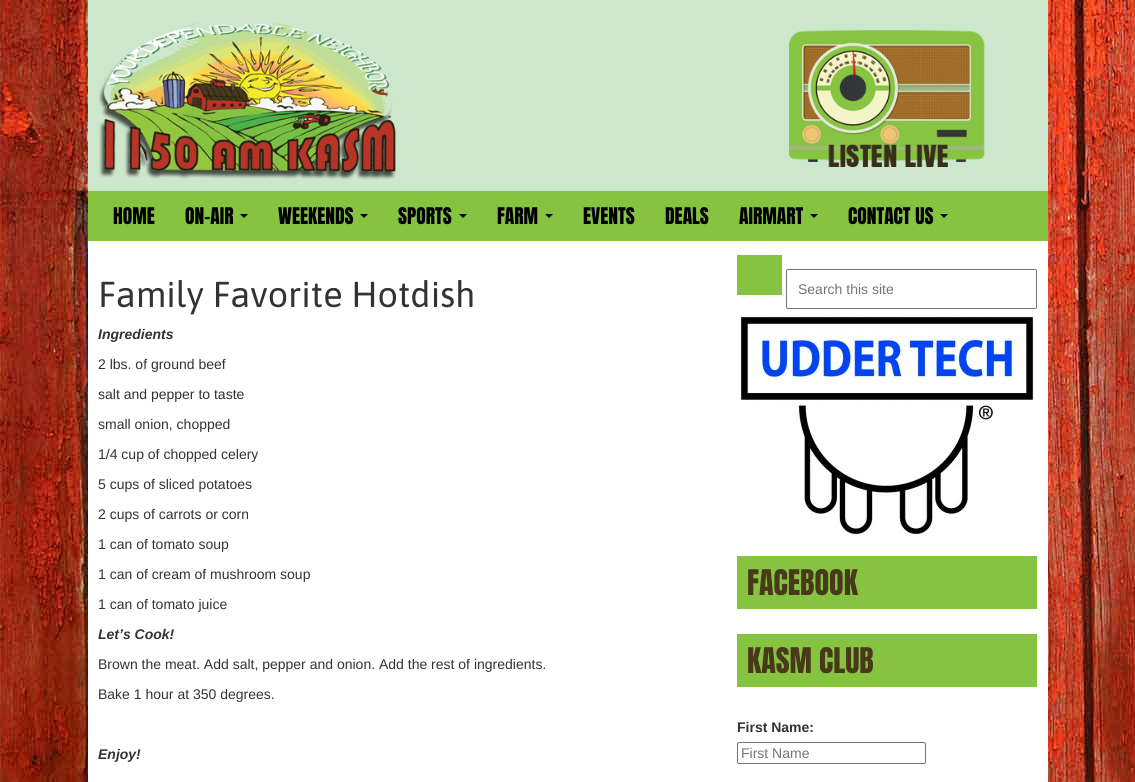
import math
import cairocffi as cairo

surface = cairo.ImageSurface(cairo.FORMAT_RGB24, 1135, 782)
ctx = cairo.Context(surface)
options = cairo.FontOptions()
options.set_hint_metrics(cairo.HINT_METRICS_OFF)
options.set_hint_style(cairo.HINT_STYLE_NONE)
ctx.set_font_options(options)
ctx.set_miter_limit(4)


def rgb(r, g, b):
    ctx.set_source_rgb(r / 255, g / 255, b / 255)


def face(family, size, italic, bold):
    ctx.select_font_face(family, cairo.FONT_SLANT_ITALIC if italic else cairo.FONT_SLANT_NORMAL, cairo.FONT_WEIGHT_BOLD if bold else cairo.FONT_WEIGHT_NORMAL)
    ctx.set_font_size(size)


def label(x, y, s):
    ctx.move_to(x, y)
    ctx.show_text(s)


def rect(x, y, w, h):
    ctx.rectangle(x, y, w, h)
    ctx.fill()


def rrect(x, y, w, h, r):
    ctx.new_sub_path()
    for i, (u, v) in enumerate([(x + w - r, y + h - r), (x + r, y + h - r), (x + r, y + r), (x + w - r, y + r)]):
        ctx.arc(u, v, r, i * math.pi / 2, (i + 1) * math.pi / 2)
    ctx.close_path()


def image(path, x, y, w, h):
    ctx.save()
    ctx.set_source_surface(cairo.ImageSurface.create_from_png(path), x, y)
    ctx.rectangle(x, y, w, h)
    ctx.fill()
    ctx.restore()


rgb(255, 255, 255)
ctx.paint()
image('image0.png', 0, 0, 1135, 782)
rgb(205, 231, 204)
rect(88, 0, 960, 191)
image('image1.png', 99, 22, 297, 158)
image('image2.png', 789, 30, 196, 137)
rgb(134, 195, 65)
rect(88, 191, 960, 50)
face('Anton', 19.5, 0, 0)
rgb(0, 0, 0)
label(113, 224, 'HOME')
label(185, 224, 'ON-AIR')
ctx.new_path()
ctx.move_to(240, 214)
ctx.line_to(248, 214)
ctx.line_to(244, 218)
ctx.close_path()
ctx.fill()
label(278, 224, 'WEEKENDS')
ctx.new_path()
ctx.move_to(360, 214)
ctx.line_to(368, 214)
ctx.line_to(364, 218)
ctx.close_path()
ctx.fill()
label(398, 224, 'SPORTS')
ctx.new_path()
ctx.move_to(459, 214)
ctx.line_to(467, 214)
ctx.line_to(463, 218)
ctx.close_path()
ctx.fill()
label(497, 224, 'FARM')
ctx.new_path()
ctx.move_to(545, 214)
ctx.line_to(553, 214)
ctx.line_to(549, 218)
ctx.close_path()
ctx.fill()
label(583, 224, 'EVENTS')
label(665, 224, 'DEALS')
label(739, 224, 'AIRMART')
ctx.new_path()
ctx.move_to(810, 214)
ctx.line_to(818, 214)
ctx.line_to(814, 218)
ctx.close_path()
ctx.fill()
label(848, 224, 'CONTACT US')
ctx.new_path()
ctx.move_to(940, 214)
ctx.line_to(948, 214)
ctx.line_to(944, 218)
ctx.close_path()
ctx.fill()
rgb(255, 255, 255)
rect(88, 241, 960, 541)
face('Asap', 36, 0, 0)
rgb(51, 51, 51)
label(98, 307, 'Family Favorite Hotdish')
face('Liberation Sans', 14, 1, 1)
label(98, 339, 'Ingredients')
face('Liberation Sans', 14, 0, 0)
label(98, 369, '2 lbs. of ground beef')
label(98, 399, 'salt and pepper to taste')
label(98, 429, 'small onion, chopped')
label(98, 459, '1/4 cup of chopped celery')
label(98, 489, '5 cups of sliced potatoes')
label(98, 519, '2 cups of carrots or corn')
label(98, 549, '1 can of tomato soup')
label(98, 579, '1 can of cream of mushroom soup')
label(98, 609, '1 can of tomato juice')
face('Liberation Sans', 14, 1, 1)
label(98, 639, 'Let’s Cook!')
face('Liberation Sans', 14, 0, 0)
label(98, 669, 'Brown the meat. Add salt, pepper and onion. Add the rest of ingredients.')
label(98, 699, 'Bake 1 hour at 350 degrees.')
face('Liberation Sans', 14, 1, 1)
label(98, 759, 'Enjoy!')
rgb(134, 195, 65)
rect(737, 255, 45, 40)
rrect(786.5, 269.5, 250, 39, 1.5)
rgb(118, 118, 118)
ctx.set_line_width(1)
ctx.stroke()
face('Liberation Sans', 14, 0, 0)
rgb(117, 117, 117)
label(798, 294, 'Search this site')
image('image3.png', 738, 313, 296, 224)
rgb(134, 195, 65)
rect(737, 556, 300, 53)
face('Anton', 30, 0, 0)
rgb(72, 57, 26)
label(747, 595, 'FACEBOOK')
rgb(134, 195, 65)
rect(737, 634, 300, 53)
rgb(72, 57, 26)
label(747, 673, 'KASM CLUB')
face('Liberation Sans', 14, 0, 1)
rgb(51, 51, 51)
label(737, 732, 'First Name:')
rrect(737.5, 742.5, 188, 21, 1.5)
rgb(118, 118, 118)
ctx.stroke()
face('Liberation Sans', 14, 0, 0)
rgb(117, 117, 117)
label(741, 758, 'First Name')
surface.write_to_png('render.png')
